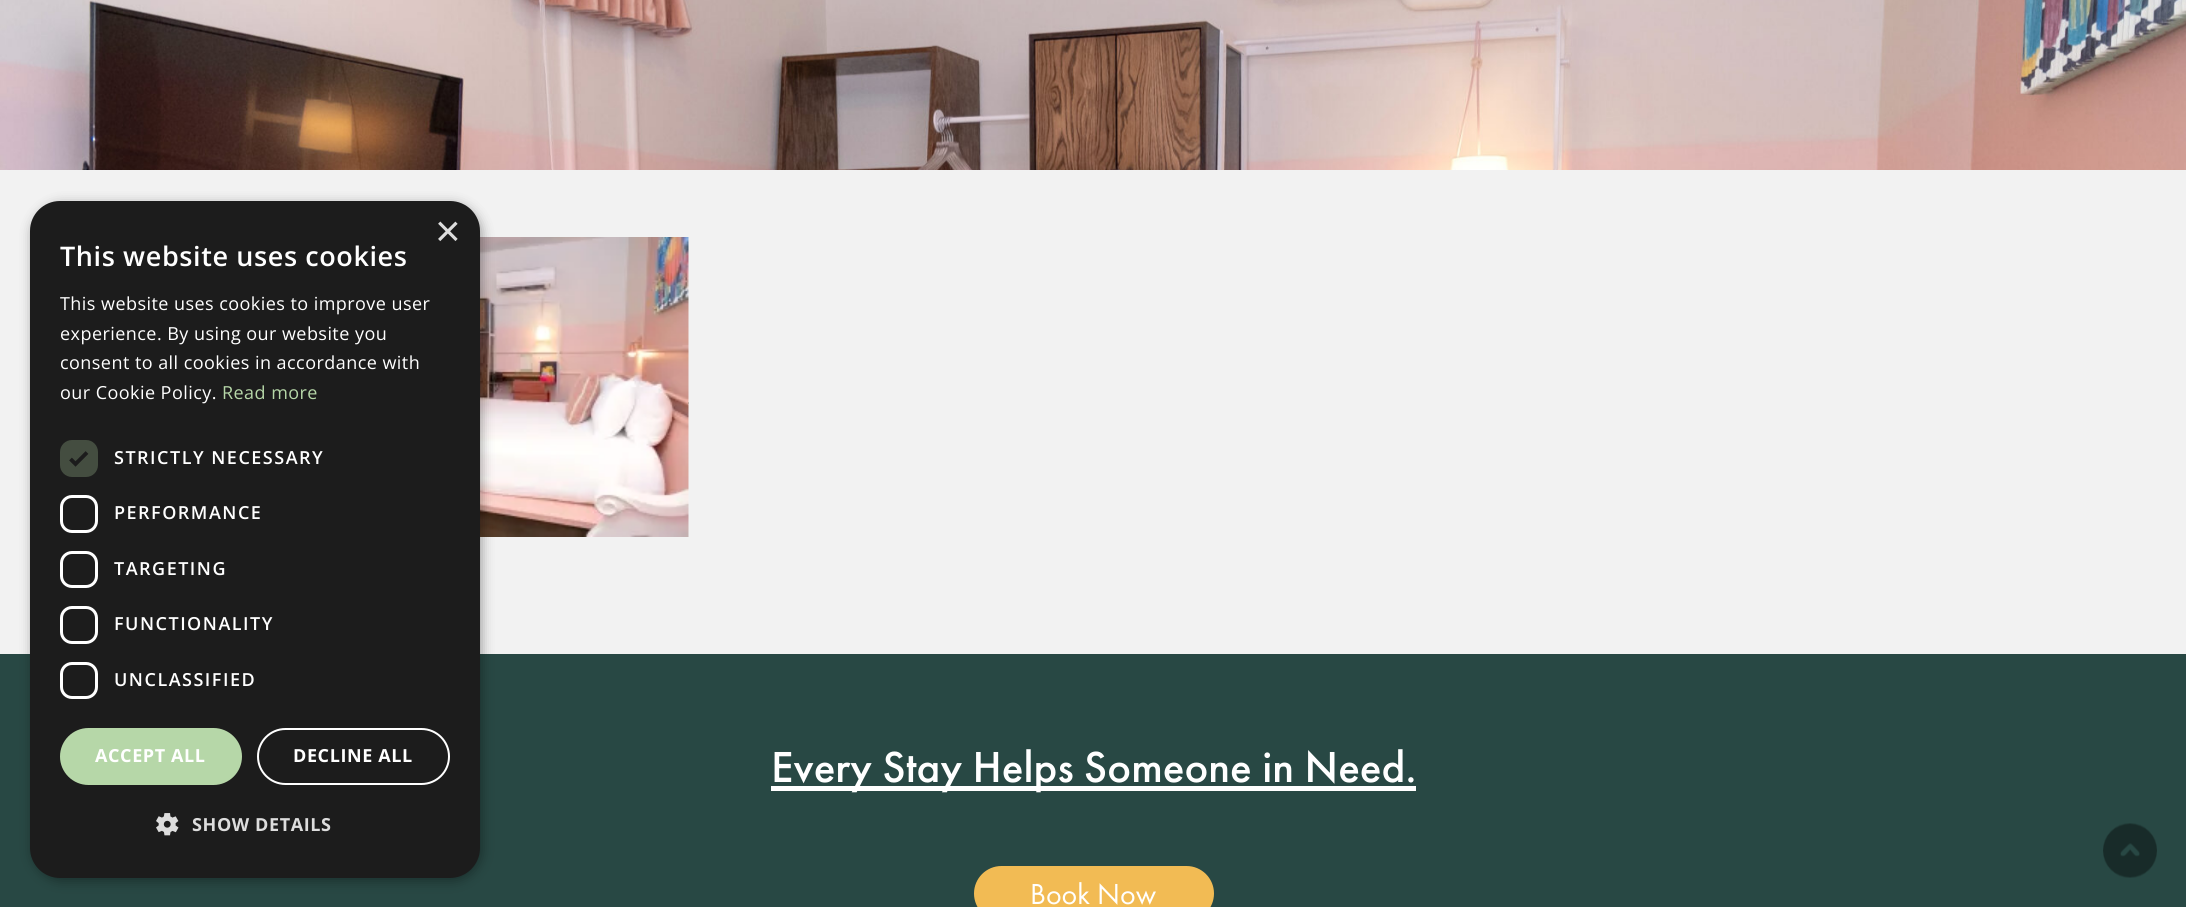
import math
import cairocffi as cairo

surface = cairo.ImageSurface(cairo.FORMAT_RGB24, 2186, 907)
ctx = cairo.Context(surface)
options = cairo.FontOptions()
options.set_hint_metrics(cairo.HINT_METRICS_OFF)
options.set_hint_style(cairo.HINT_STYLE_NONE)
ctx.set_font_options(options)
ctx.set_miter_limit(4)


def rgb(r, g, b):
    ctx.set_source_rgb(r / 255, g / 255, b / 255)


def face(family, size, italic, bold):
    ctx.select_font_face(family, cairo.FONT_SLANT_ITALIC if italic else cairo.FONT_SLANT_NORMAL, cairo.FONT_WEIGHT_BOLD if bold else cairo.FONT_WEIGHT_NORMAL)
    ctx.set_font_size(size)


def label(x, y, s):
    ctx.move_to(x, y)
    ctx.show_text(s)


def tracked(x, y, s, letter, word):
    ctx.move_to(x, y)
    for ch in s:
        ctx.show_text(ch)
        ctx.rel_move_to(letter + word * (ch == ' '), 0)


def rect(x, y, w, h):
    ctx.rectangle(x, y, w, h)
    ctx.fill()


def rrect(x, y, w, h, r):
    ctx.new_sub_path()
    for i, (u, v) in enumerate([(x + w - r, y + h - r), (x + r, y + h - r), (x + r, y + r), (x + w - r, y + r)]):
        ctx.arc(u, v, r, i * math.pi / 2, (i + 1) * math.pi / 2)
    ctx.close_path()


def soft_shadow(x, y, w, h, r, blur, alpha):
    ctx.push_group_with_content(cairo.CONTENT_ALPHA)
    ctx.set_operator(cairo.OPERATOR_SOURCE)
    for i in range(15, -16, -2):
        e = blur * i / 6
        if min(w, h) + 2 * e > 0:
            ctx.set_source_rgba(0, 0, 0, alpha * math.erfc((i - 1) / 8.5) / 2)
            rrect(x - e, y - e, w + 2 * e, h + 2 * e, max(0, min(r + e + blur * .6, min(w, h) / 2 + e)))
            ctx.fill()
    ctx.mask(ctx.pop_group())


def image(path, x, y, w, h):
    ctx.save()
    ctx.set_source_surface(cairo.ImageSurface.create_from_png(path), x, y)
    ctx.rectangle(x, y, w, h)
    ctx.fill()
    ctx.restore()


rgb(242, 242, 242)
ctx.paint()
rgb(171, 192, 184)
rect(688, 402, 1, 2)
image('image2.png', 480, 237, 209, 300)
rgb(40, 72, 68)
rect(0, 654, 2186, 253)
rgb(0, 0, 0)
soft_shadow(32, 204, 450, 677, 30, 6, 0.35)
rgb(28, 28, 28)
rrect(30, 201, 450, 677, 30)
ctx.fill()
face('Liberation Sans', 44, 0, 0)
rgb(221, 221, 221)
label(435, 246, '×')
face('Open Sans SemiBold', 27, 0, 0)
rgb(255, 255, 255)
tracked(60, 266, 'This website uses cookies', 0.6, 0)
face('Open Sans', 18, 0, 0)
tracked(60, 310, 'This website uses cookies to improve user', 0.45, 0)
tracked(60, 340, 'experience. By using our website you', 0.45, 0)
tracked(60, 369, 'consent to all cookies in accordance with', 0.45, 0)
tracked(60, 399, 'our Cookie Policy.', 0.45, 0)
rgb(182, 215, 168)
tracked(222, 399, 'Read more', 0.45, 0)
rgb(68, 77, 64)
rrect(60, 440, 38, 37, 12)
ctx.fill()
ctx.new_path()
ctx.move_to(70.5, 459)
ctx.line_to(75.5, 464)
ctx.line_to(87, 452.5)
rgb(28, 28, 28)
ctx.set_line_width(3.9)
ctx.stroke()
face('Open Sans SemiBold', 18, 0, 0)
rgb(255, 255, 255)
tracked(114, 464, 'STRICTLY NECESSARY', 1.5, 0)
rrect(61.5, 496.5, 35, 35, 10.5)
ctx.set_line_width(3)
ctx.stroke()
tracked(114, 519, 'PERFORMANCE', 1.5, 0)
rrect(61.5, 552.5, 35, 34, 10.5)
ctx.stroke()
tracked(114, 575, 'TARGETING', 1.5, 0)
rrect(61.5, 607.5, 35, 35, 10.5)
ctx.stroke()
tracked(114, 630, 'FUNCTIONALITY', 1.5, 0)
rrect(61.5, 663.5, 35, 34, 10.5)
ctx.stroke()
tracked(114, 686, 'UNCLASSIFIED', 1.5, 0)
rgb(182, 215, 168)
rrect(60, 728, 182, 57, 28.5)
ctx.fill()
face('Open Sans', 18, 0, 1)
rgb(255, 255, 255)
tracked(95, 762, 'ACCEPT ALL', 0.6, 0)
rrect(258, 729, 191, 55, 27.5)
ctx.set_line_width(2)
ctx.stroke()
tracked(293, 762, 'DECLINE ALL', 0.6, 0)
image('image0.png', 156, 813, 23, 23)
rgb(221, 221, 221)
tracked(192, 831, 'SHOW DETAILS', 0.6, 0)
image('image1.png', 0, 0, 2186, 170)
rgb(255, 255, 255)
rect(771, 786, 645, 5)
face('Futura PT Medium', 45, 0, 0)
label(771, 782, 'Every Stay Helps Someone in Need.')
rgb(242, 187, 84)
rrect(974, 866, 240, 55, 27.5)
ctx.fill()
face('Futura PT', 30, 0, 0)
rgb(255, 255, 255)
label(1030, 904, 'Book Now')
image('image3.png', 2103, 823, 54, 55)
surface.write_to_png('render.png')
